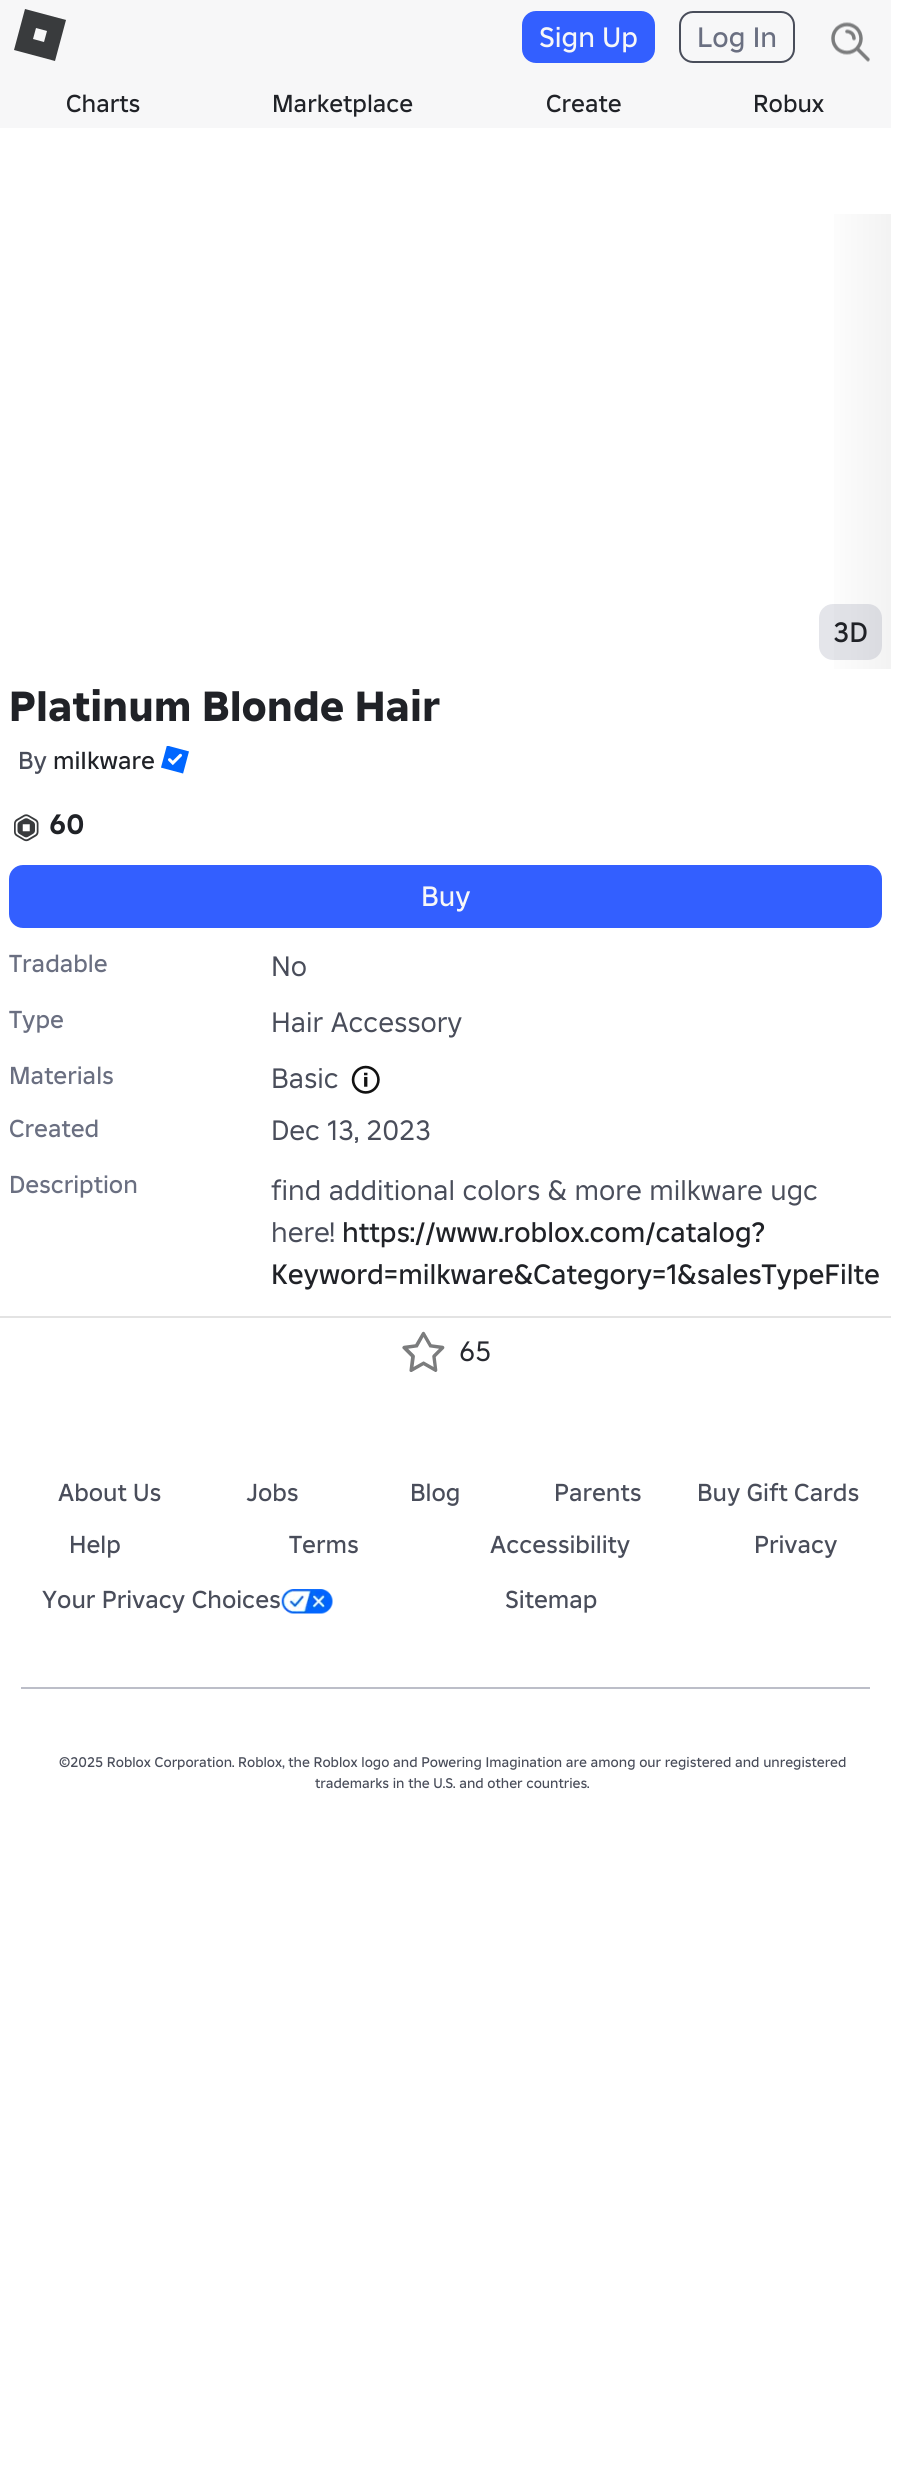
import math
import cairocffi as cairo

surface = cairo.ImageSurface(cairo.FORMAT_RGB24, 916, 2470)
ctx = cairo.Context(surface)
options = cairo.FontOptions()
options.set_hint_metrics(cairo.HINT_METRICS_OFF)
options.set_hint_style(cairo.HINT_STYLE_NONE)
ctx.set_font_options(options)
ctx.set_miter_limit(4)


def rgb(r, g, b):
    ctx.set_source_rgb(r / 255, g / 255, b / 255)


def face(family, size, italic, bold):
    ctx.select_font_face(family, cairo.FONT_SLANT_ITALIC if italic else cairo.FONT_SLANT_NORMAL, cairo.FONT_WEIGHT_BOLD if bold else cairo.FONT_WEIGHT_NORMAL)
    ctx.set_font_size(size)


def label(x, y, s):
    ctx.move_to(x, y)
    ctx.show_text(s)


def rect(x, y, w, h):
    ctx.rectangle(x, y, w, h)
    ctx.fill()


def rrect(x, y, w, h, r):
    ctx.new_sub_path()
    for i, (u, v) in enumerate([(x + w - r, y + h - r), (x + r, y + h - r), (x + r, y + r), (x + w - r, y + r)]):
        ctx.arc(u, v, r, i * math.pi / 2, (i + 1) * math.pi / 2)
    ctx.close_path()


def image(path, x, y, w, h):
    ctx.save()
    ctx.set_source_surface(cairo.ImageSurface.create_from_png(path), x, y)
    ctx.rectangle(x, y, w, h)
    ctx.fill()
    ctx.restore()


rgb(255, 255, 255)
ctx.paint()
rgb(247, 247, 248)
rect(0, 0, 891, 128)
rgb(57, 59, 61)
ctx.new_path()
ctx.move_to(25, 9)
ctx.line_to(14, 50)
ctx.line_to(55, 61)
ctx.line_to(66, 20)
ctx.close_path()
ctx.move_to(44, 42)
ctx.line_to(33, 39)
ctx.line_to(36, 28)
ctx.line_to(47, 31)
ctx.close_path()
ctx.fill()
rgb(51, 95, 255)
rrect(522, 11, 133, 52, 14)
ctx.fill()
face('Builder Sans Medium', 28, 0, 0)
rgb(247, 247, 248)
label(539, 47, 'Sign Up')
rrect(680, 12, 114, 50, 13)
rgb(73, 77, 90)
ctx.stroke()
rgb(106, 111, 129)
label(697, 47, 'Log In')
image('image0.png', 831, 22, 39, 40)
face('Builder Sans Medium', 24.5, 0, 0)
rgb(32, 34, 39)
label(66, 112, 'Charts')
label(272, 112, 'Marketplace')
label(546, 112, 'Create')
label(753, 112, 'Robux')
gradient = cairo.LinearGradient(819, 441, 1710, 441)
gradient.add_color_stop_rgba(0, 1, 1, 1, 1)
gradient.add_color_stop_rgba(0.5, 0.702, 0.702, 0.702, 1)
gradient.add_color_stop_rgba(1, 1, 1, 1, 1)
ctx.set_source(gradient)
rect(834, 214, 57, 455)
ctx.set_source_rgba(0.106, 0.145, 0.294, 0.12)
rrect(819, 604, 63, 56, 14)
ctx.fill()
face('Builder Sans Medium', 28, 0, 0)
rgb(32, 34, 39)
label(833, 642, '3D')
face('Builder Sans ExtraBold', 42, 0, 0)
label(9, 721, 'Platinum Blonde Hair')
face('Builder Sans Medium', 24.5, 0, 0)
rgb(73, 77, 90)
label(18, 769, 'By')
rgb(32, 34, 39)
label(53, 769, 'miIkware')
image('image1.png', 161, 746, 28, 28)
image('image2.png', 14, 814, 25, 28)
face('Builder Sans', 28, 0, 1)
label(49, 834, '60')
rgb(51, 95, 255)
rrect(9, 865, 873, 63, 14)
ctx.fill()
face('Builder Sans Medium', 28, 0, 0)
rgb(247, 247, 248)
label(421, 906, 'Buy')
face('Builder Sans Medium', 24.5, 0, 0)
rgb(106, 111, 129)
label(9, 972, 'Tradable')
face('Builder Sans', 28, 0, 0)
rgb(73, 77, 90)
label(271, 976, 'No')
face('Builder Sans Medium', 24.5, 0, 0)
rgb(106, 111, 129)
label(9, 1028, 'Type')
face('Builder Sans', 28, 0, 0)
rgb(73, 77, 90)
label(271, 1032, 'Hair Accessory')
face('Builder Sans Medium', 24.5, 0, 0)
rgb(106, 111, 129)
label(9, 1084, 'Materials')
face('Builder Sans', 28, 0, 0)
rgb(73, 77, 90)
label(271, 1088, 'Basic')
image('image3.png', 351, 1065, 29, 29)
face('Builder Sans Medium', 24.5, 0, 0)
rgb(106, 111, 129)
label(9, 1137, 'Created')
face('Builder Sans', 28, 0, 0)
rgb(73, 77, 90)
label(271, 1140, 'Dec 13, 2023')
face('Builder Sans Medium', 24.5, 0, 0)
rgb(106, 111, 129)
label(9, 1193, 'Description')
face('Builder Sans', 28, 0, 0)
rgb(73, 77, 90)
label(271, 1200, 'find additional colors & more milkware ugc')
label(271, 1242, 'here!')
face('Builder Sans Medium', 28, 0, 0)
rgb(32, 34, 39)
label(342, 1242, 'https://www.roblox.com/catalog?')
label(271, 1284, 'Keyword=milkware&Category=1&salesTypeFilte')
rgb(227, 227, 227)
rect(0, 1316, 891, 2)
image('image4.png', 402, 1331, 43, 41)
face('Builder Sans', 28, 0, 0)
rgb(39, 41, 48)
label(459, 1361, '65')
face('Builder Sans Medium', 24.5, 0, 0)
rgb(73, 77, 90)
label(58, 1501, 'About Us')
label(246, 1501, 'Jobs')
label(410, 1501, 'Blog')
label(554, 1501, 'Parents')
label(697, 1501, 'Buy Gift Cards')
label(69, 1553, 'Help')
label(289, 1553, 'Terms')
label(490, 1553, 'Accessibility')
label(754, 1553, 'Privacy')
label(42, 1608, 'Your Privacy Choices')
image('image5.png', 281, 1589, 52, 25)
label(505, 1608, 'Sitemap')
rgb(188, 190, 200)
rect(21, 1687, 849, 2)
face('Builder Sans Medium', 14, 0, 0)
rgb(73, 77, 90)
label(59, 1767, '©2025 Roblox Corporation. Roblox, the Roblox logo and Powering Imagination are among our registered and unregistered')
label(315, 1788, 'trademarks in the U.S. and other countries.')
surface.write_to_png('render.png')
